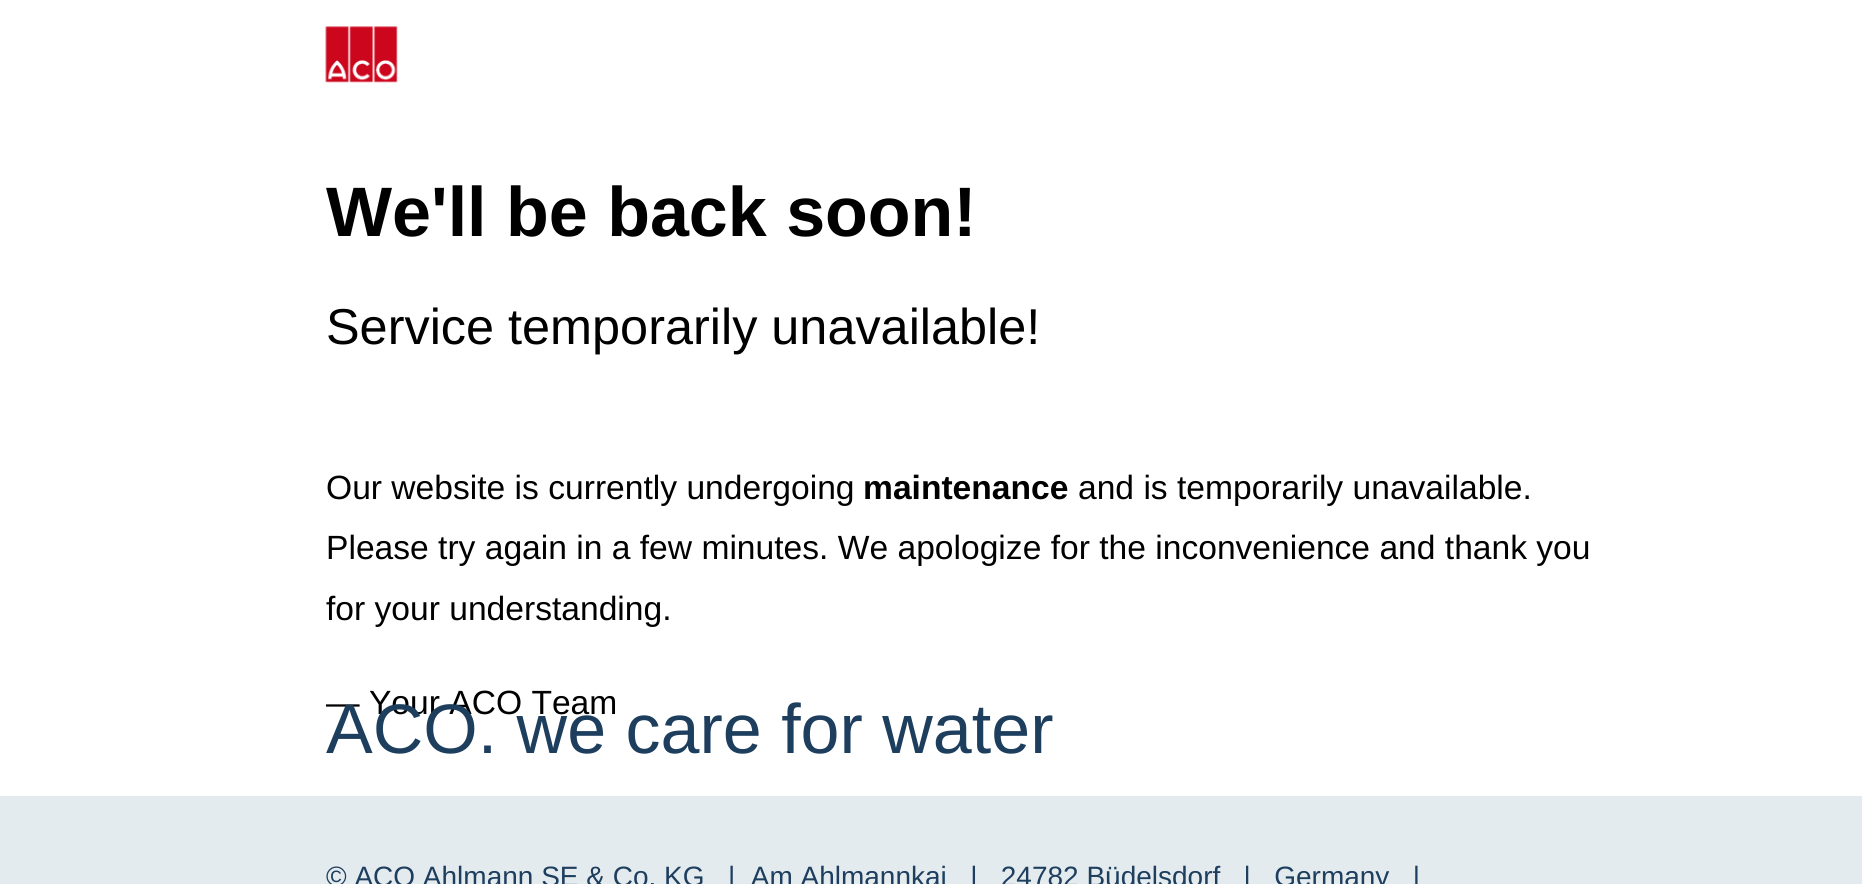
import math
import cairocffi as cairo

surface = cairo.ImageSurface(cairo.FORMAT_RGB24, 1862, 884)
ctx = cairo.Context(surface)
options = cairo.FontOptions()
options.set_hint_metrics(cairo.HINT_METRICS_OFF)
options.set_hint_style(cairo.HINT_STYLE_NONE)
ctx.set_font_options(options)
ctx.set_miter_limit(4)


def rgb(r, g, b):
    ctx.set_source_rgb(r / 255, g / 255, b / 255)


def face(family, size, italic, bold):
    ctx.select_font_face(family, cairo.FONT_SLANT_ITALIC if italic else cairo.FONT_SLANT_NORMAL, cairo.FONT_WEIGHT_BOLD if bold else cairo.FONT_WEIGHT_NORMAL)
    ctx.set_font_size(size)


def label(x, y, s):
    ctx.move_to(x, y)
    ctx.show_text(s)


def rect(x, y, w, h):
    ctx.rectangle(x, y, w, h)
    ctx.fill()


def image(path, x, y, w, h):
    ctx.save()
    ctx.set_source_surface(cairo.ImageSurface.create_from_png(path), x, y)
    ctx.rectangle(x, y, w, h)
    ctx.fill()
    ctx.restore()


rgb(255, 255, 255)
ctx.paint()
image('image0.png', 325, 26, 73, 57)
face('Liberation Sans', 70, 0, 1)
rgb(0, 0, 0)
label(326, 236, 'We\'ll be back soon!')
face('Liberation Sans', 50.4, 0, 0)
label(326, 344, 'Service temporarily unavailable!')
face('Liberation Sans', 33.6, 0, 0)
label(326, 499, 'Our website is currently undergoing')
face('Liberation Sans', 33.6, 0, 1)
label(863, 499, 'maintenance')
face('Liberation Sans', 33.6, 0, 0)
label(1078, 499, 'and is temporarily unavailable.')
label(326, 559, 'Please try again in a few minutes. We apologize for the inconvenience and thank you')
label(326, 620, 'for your understanding.')
label(326, 714, '— Your ACO Team')
face('Liberation Sans', 70, 0, 0)
rgb(30, 62, 94)
label(326, 753, 'ACO. we care for water')
rgb(228, 235, 239)
rect(0, 796, 1862, 88)
face('Liberation Sans', 28, 0, 0)
rgb(30, 62, 94)
label(326, 886, '© ACO Ahlmann SE & Co. KG   |  Am Ahlmannkai   |   24782 Büdelsdorf   |   Germany   |')
surface.write_to_png('render.png')
